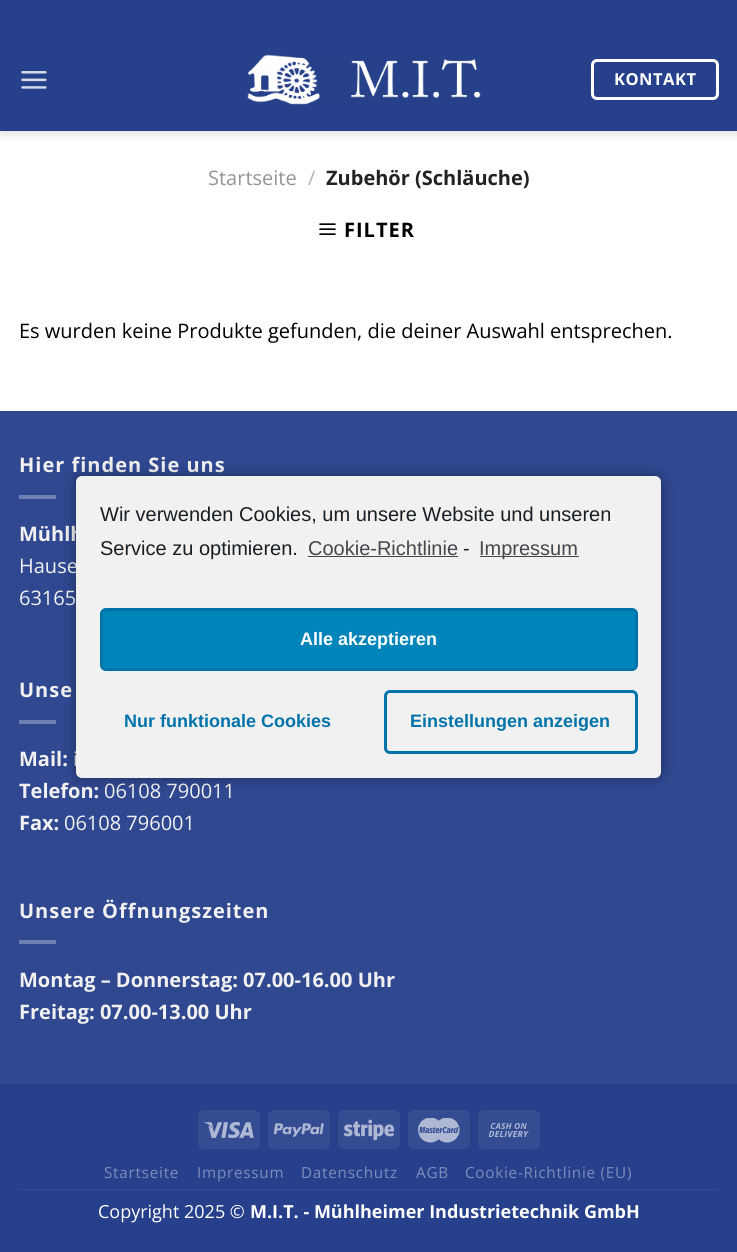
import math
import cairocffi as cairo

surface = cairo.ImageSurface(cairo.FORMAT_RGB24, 737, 1252)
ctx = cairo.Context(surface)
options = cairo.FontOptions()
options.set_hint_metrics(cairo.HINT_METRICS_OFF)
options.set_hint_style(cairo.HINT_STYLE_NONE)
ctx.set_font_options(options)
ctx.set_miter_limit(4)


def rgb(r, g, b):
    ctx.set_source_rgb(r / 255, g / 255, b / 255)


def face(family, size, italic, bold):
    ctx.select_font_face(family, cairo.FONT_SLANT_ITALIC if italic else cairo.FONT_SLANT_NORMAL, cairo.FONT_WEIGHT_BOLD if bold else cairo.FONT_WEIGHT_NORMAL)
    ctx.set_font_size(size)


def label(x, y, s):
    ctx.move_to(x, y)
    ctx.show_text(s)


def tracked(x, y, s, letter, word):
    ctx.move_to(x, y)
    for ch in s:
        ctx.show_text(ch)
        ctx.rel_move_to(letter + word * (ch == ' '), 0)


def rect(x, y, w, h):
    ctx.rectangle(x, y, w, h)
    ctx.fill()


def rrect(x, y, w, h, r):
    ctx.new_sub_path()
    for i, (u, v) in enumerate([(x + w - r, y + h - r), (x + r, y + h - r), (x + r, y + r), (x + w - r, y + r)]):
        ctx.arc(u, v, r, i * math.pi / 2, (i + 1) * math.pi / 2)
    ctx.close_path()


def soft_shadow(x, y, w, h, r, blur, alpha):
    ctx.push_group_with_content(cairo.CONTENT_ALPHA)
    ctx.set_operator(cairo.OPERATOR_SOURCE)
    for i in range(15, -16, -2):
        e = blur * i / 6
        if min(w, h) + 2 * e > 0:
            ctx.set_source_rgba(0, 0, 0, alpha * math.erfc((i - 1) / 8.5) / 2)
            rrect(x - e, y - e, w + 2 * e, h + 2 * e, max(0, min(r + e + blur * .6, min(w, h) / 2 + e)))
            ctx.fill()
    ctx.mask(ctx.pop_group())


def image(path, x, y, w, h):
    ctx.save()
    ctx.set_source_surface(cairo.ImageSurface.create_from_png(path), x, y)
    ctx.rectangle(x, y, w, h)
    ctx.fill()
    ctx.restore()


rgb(255, 255, 255)
ctx.paint()
rgb(0, 0, 0)
soft_shadow(1, -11, 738, 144, 0, 6, 0.15)
rgb(39, 64, 139)
rect(0, 0, 737, 131)
image('image0.png', 21, 71, 26, 18)
image('image1.png', 247, 54, 234, 51)
rrect(592.5, 60.5, 125, 38, 4.5)
rgb(255, 255, 255)
ctx.set_line_width(3)
ctx.stroke()
face('Open Sans', 16.5, 0, 1)
tracked(614, 85, 'KONTAKT', 0.5, 0)
face('Open Sans', 20, 0, 0)
rgb(148, 148, 148)
label(208, 185, 'Startseite')
rgb(178, 178, 178)
label(308, 185, '/')
face('Open Sans', 20, 0, 1)
rgb(34, 34, 34)
label(326, 185, 'Zubehör (Schläuche)')
image('image2.png', 319, 223, 17, 12)
rgb(0, 0, 0)
tracked(344, 237, 'FILTER', 1, 0)
face('Open Sans', 20, 0, 0)
label(19, 338, 'Es wurden keine Produkte gefunden, die deiner Auswahl entsprechen.')
rgb(48, 72, 144)
rect(0, 412, 737, 672)
rgb(46, 68, 137)
rect(0, 411, 737, 1)
face('Open Sans', 20, 0, 1)
rgb(241, 241, 241)
tracked(19, 472, 'Hier finden Sie uns', 1, 0)
rgb(110, 127, 177)
rect(19, 495, 37, 4)
rgb(241, 241, 241)
label(19, 541, 'Mühlh')
face('Open Sans', 20, 0, 0)
label(19, 573, 'Hause')
label(19, 605, '63165')
face('Open Sans', 20, 0, 1)
tracked(19, 697, 'Unse', 1, 0)
rgb(110, 127, 177)
rect(19, 720, 37, 4)
rgb(241, 241, 241)
label(19, 766, 'Mail:')
face('Open Sans', 20, 0, 0)
label(73, 766, 'i')
face('Open Sans', 20, 0, 1)
label(19, 798, 'Telefon:')
face('Open Sans', 20, 0, 0)
label(104, 798, '06108 790011')
face('Open Sans', 20, 0, 1)
label(19, 830, 'Fax:')
face('Open Sans', 20, 0, 0)
label(64, 830, '06108 796001')
face('Open Sans', 20, 0, 1)
tracked(19, 918, 'Unsere Öffnungszeiten', 1, 0)
rgb(110, 127, 177)
rect(19, 940, 37, 4)
rgb(241, 241, 241)
label(19, 987, 'Montag – Donnerstag: 07.00-16.00 Uhr')
label(19, 1019, 'Freitag: 07.00-13.00 Uhr')
rgb(39, 64, 139)
rect(0, 1084, 737, 168)
rgb(52, 76, 146)
rrect(198, 1110, 62, 39, 6)
ctx.fill()
image('image3.png', 204, 1121, 50, 18)
rrect(268, 1110, 62, 39, 6)
ctx.fill()
image('image4.png', 274, 1123, 50, 14)
rrect(338, 1110, 62, 39, 6)
ctx.fill()
image('image5.png', 344, 1119, 50, 22)
rrect(408, 1110, 62, 39, 6)
ctx.fill()
image('image6.png', 418, 1118, 42, 25)
rrect(478, 1110, 62, 39, 6)
ctx.fill()
image('image7.png', 488, 1123, 41, 14)
rgb(53, 76, 146)
rect(19, 1189, 700, 1)
face('Open Sans', 15.25, 0, 0)
rgb(126, 141, 186)
tracked(104, 1178, 'Startseite', 0.75, 0)
tracked(197, 1178, 'Impressum', 0.75, 0)
tracked(301, 1178, 'Datenschutz', 0.75, 0)
tracked(416, 1178, 'AGB', 0.75, 0)
tracked(465, 1178, 'Cookie-Richtlinie (EU)', 0.75, 0)
face('Open Sans', 18, 0, 0)
rgb(255, 255, 255)
label(98, 1218, 'Copyright 2025 ©')
face('Open Sans', 18, 0, 1)
label(250, 1218, 'M.I.T. - Mühlheimer Industrietechnik GmbH')
rgb(0, 0, 0)
soft_shadow(76, 476, 585, 302, 6, 6, 0.4)
rgb(241, 241, 241)
rrect(76, 476, 585, 302, 6)
ctx.fill()
face('Liberation Sans', 20, 0, 0)
rgb(25, 30, 35)
label(100, 521, 'Wir verwenden Cookies, um unsere Website und unseren')
label(100, 555, 'Service zu optimieren.')
rgb(68, 72, 76)
label(308, 555, 'Cookie-Richtlinie')
rect(308, 556, 150, 1)
rgb(25, 30, 35)
label(463, 555, '-')
rgb(68, 72, 76)
rect(480, 556, 99, 1)
label(479, 555, 'Impressum')
rgb(0, 133, 186)
rrect(101.5, 609.5, 535, 60, 4.5)
ctx.fill_preserve()
rgb(0, 115, 170)
ctx.stroke()
face('Liberation Sans', 18, 0, 1)
rgb(255, 255, 255)
label(300, 645, 'Alle akzeptieren')
rgb(0, 115, 170)
label(124, 727, 'Nur funktionale Cookies')
rrect(385.5, 691.5, 251, 61, 4.5)
ctx.stroke()
label(410, 727, 'Einstellungen anzeigen')
surface.write_to_png('render.png')
